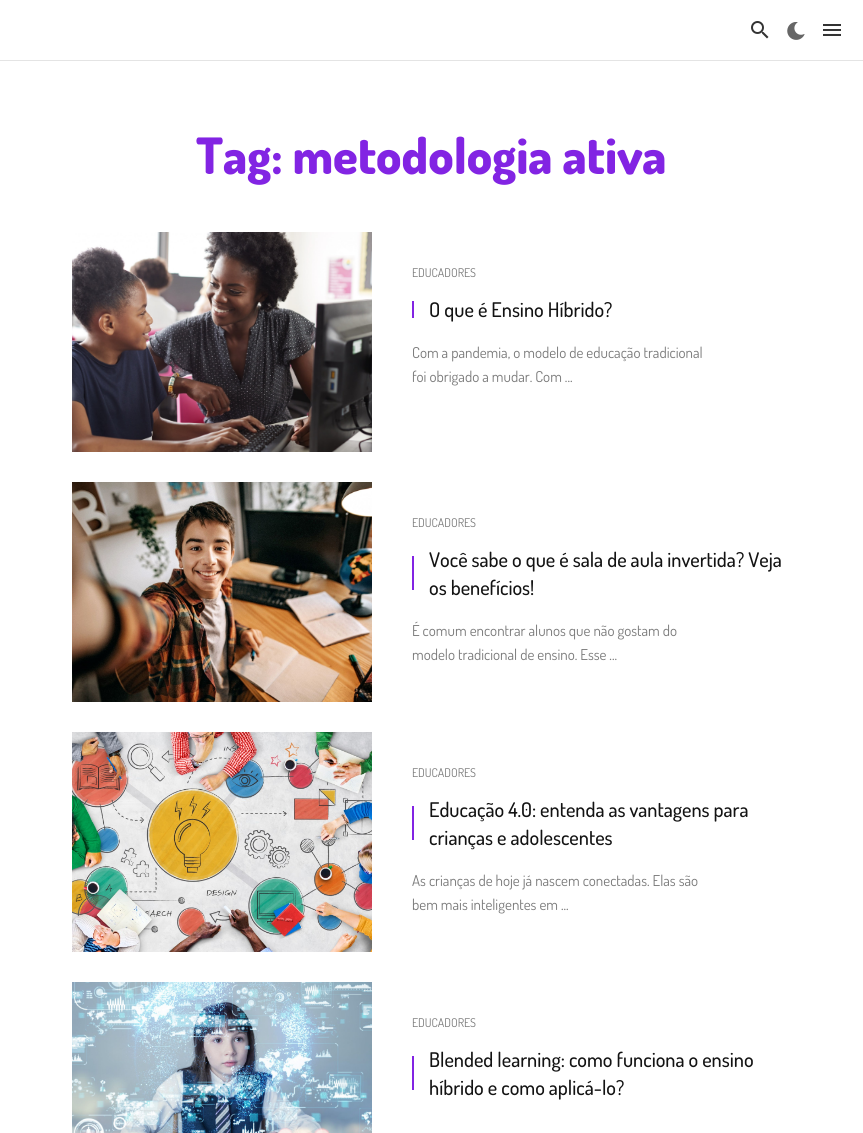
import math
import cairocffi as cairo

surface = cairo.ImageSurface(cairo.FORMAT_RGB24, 863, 1133)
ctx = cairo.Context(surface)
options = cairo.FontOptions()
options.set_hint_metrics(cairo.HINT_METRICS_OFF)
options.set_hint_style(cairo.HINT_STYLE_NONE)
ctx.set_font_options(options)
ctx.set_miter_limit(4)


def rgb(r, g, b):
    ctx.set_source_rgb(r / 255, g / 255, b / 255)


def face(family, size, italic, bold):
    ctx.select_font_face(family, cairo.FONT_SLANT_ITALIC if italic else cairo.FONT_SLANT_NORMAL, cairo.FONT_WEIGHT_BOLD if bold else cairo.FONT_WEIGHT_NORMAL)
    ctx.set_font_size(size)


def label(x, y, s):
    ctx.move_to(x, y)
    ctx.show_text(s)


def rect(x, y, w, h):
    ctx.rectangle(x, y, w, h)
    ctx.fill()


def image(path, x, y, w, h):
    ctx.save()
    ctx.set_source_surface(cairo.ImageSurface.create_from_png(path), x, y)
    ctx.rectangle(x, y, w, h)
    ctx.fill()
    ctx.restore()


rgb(255, 255, 255)
ctx.paint()
rgb(228, 228, 228)
rect(0, 60, 863, 1)
image('image0.png', 751, 21, 18, 18)
image('image1.png', 787, 22, 18, 18)
image('image2.png', 823, 24, 18, 12)
face('Dosis ExtraBold', 50, 0, 0)
rgb(130, 36, 227)
label(196, 174, 'Tag: metodologia ativa')
image('image3.png', 72, 232, 300, 220)
face('Dosis', 12, 0, 0)
rgb(122, 122, 122)
label(412, 277, 'EDUCADORES')
rgb(130, 36, 227)
rect(412, 301, 2, 17)
face('Dosis Medium', 20.2, 0, 0)
rgb(19, 19, 19)
label(429, 317, 'O que é Ensino Híbrido?')
face('Dosis', 15, 0, 0)
rgb(122, 122, 122)
label(412, 358, 'Com a pandemia, o modelo de educação tradicional')
label(412, 382, 'foi obrigado a mudar. Com ...')
image('image4.png', 72, 482, 300, 220)
face('Dosis', 12, 0, 0)
label(412, 527, 'EDUCADORES')
rgb(130, 36, 227)
rect(412, 556, 2, 34)
face('Dosis Medium', 20.2, 0, 0)
rgb(19, 19, 19)
label(429, 567, 'Você sabe o que é sala de aula invertida? Veja')
label(429, 595, 'os benefícios!')
face('Dosis', 15, 0, 0)
rgb(122, 122, 122)
label(412, 636, 'É comum encontrar alunos que não gostam do')
label(412, 660, 'modelo tradicional de ensino. Esse ...')
image('image5.png', 72, 732, 300, 220)
face('Dosis', 12, 0, 0)
label(412, 777, 'EDUCADORES')
rgb(130, 36, 227)
rect(412, 806, 2, 34)
face('Dosis Medium', 20.2, 0, 0)
rgb(19, 19, 19)
label(429, 817, 'Educação 4.0: entenda as vantagens para')
label(429, 845, 'crianças e adolescentes')
face('Dosis', 15, 0, 0)
rgb(122, 122, 122)
label(412, 886, 'As crianças de hoje já nascem conectadas. Elas são')
label(412, 910, 'bem mais inteligentes em ...')
image('image6.png', 72, 982, 300, 151)
face('Dosis', 12, 0, 0)
label(412, 1027, 'EDUCADORES')
rgb(130, 36, 227)
rect(412, 1056, 2, 34)
face('Dosis Medium', 20.2, 0, 0)
rgb(19, 19, 19)
label(429, 1067, 'Blended learning: como funciona o ensino')
label(429, 1095, 'híbrido e como aplicá-lo?')
surface.write_to_png('render.png')
